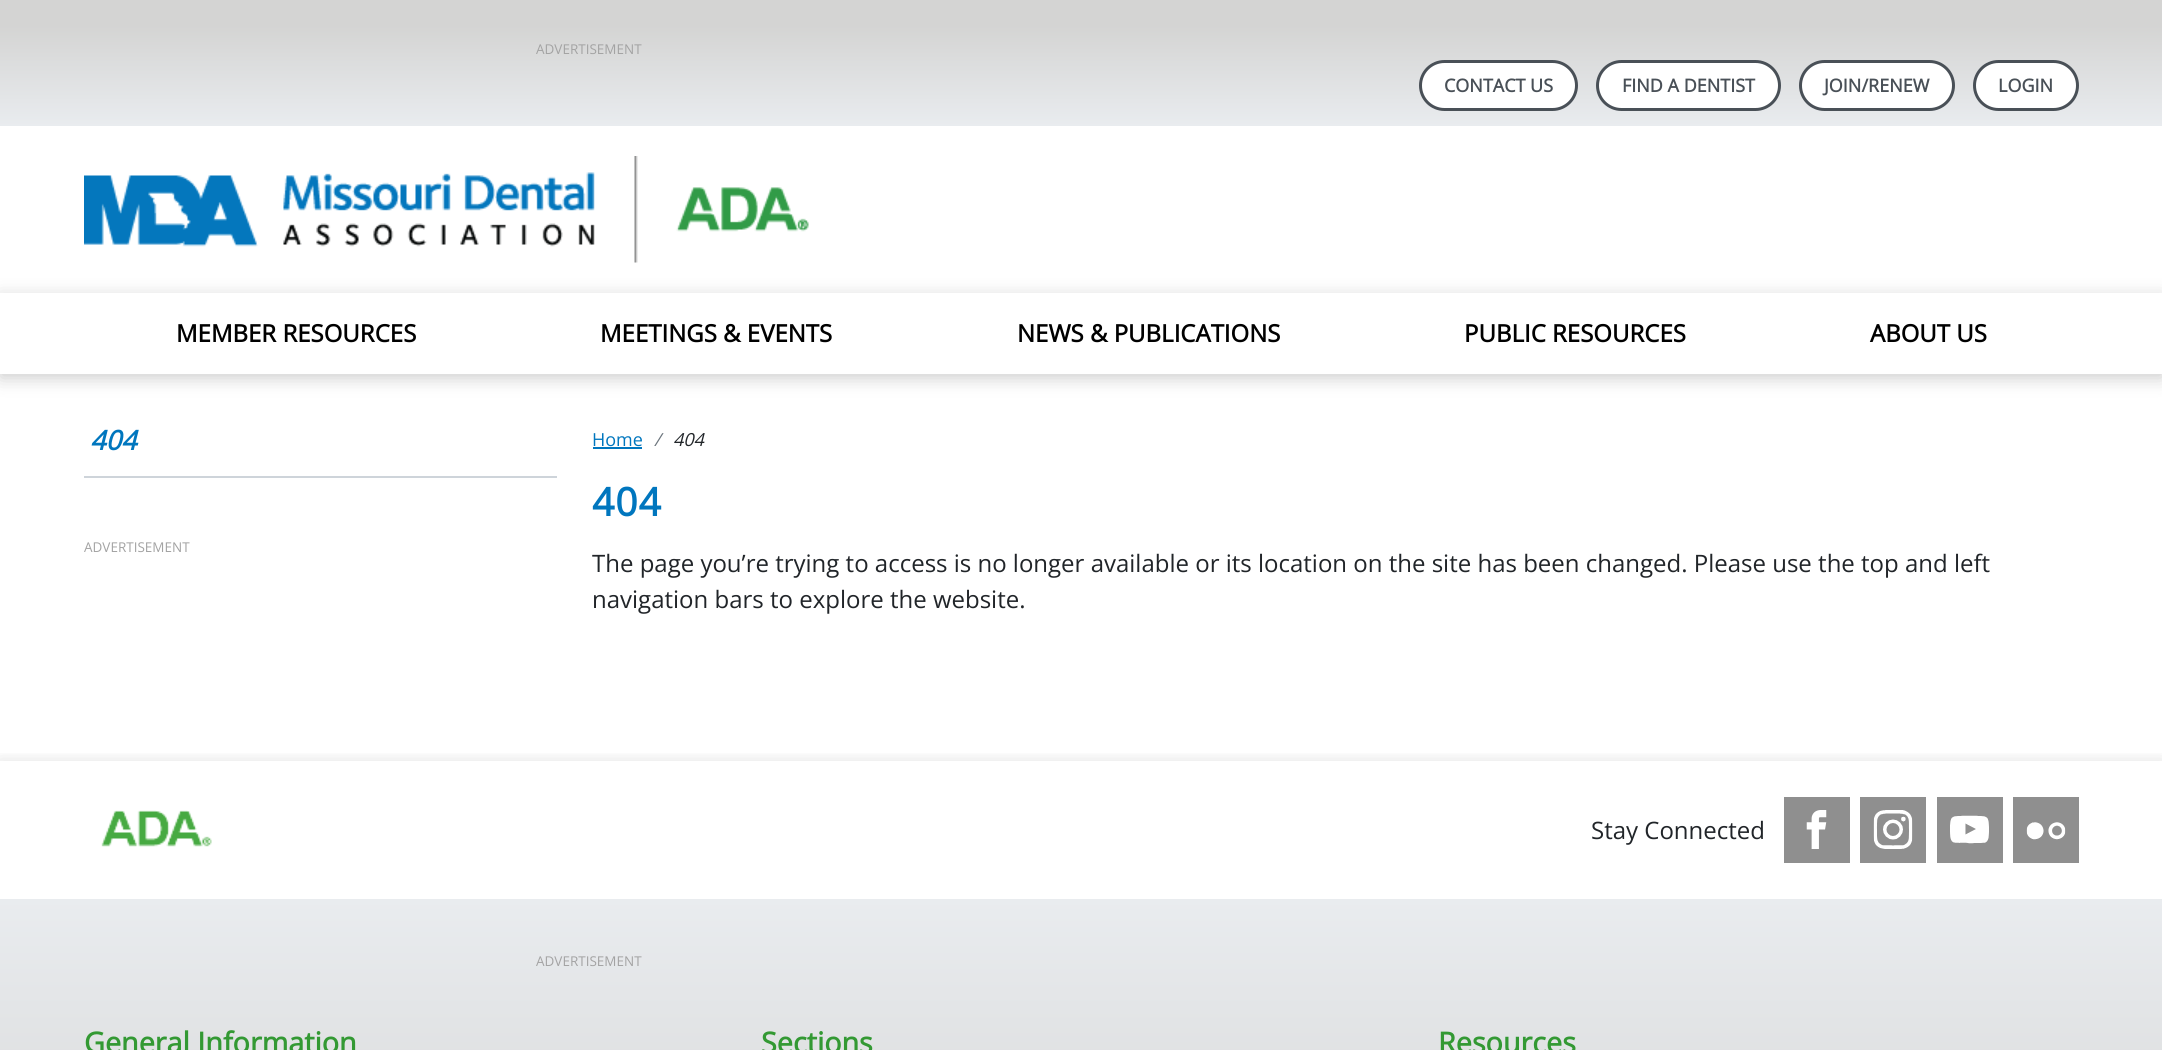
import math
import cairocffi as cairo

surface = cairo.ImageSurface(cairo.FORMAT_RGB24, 2162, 1050)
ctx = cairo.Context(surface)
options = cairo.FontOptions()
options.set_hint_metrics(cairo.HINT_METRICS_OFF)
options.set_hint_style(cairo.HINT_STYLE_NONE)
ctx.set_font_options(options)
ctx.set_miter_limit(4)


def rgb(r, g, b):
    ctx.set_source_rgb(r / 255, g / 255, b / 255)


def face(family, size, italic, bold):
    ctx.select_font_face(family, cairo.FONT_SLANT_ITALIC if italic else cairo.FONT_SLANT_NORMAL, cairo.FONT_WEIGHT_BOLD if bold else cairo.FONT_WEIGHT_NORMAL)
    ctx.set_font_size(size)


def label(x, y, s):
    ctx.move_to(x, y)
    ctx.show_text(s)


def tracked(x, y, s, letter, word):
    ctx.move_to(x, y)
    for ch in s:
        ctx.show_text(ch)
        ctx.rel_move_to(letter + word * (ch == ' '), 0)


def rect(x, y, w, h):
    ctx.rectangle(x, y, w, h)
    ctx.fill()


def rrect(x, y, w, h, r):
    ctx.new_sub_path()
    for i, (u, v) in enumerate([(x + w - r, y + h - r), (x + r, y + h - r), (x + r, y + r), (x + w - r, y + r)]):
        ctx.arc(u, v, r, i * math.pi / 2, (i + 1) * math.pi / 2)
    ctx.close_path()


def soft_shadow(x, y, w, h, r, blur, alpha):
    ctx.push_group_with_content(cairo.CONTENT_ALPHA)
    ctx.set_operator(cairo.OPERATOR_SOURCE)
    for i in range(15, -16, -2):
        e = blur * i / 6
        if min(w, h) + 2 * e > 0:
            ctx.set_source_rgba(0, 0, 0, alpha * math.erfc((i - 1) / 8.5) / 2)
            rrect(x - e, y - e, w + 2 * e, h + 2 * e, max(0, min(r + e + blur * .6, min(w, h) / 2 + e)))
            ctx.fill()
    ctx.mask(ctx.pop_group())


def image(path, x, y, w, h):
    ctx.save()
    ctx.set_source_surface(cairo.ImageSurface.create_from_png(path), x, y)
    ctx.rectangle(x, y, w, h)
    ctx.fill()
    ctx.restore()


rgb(255, 255, 255)
ctx.paint()
gradient = cairo.LinearGradient(1082, 0, 1082, 126)
gradient.add_color_stop_rgba(0.2, 0.831, 0.831, 0.827, 1)
gradient.add_color_stop_rgba(1, 0.914, 0.925, 0.937, 1)
ctx.set_source(gradient)
rect(0, 0, 2162, 126)
face('Open Sans', 13.5, 0, 0)
rgb(163, 163, 163)
label(536, 54, 'ADVERTISEMENT')
rgb(255, 255, 255)
rrect(1420.5, 61.5, 156, 48, 24)
ctx.fill_preserve()
rgb(73, 80, 87)
ctx.set_line_width(3)
ctx.stroke()
face('Open Sans', 18, 0, 1)
label(1444, 92, 'CONTACT US')
rgb(255, 255, 255)
rrect(1597.5, 61.5, 182, 48, 24)
ctx.fill_preserve()
rgb(73, 80, 87)
ctx.stroke()
label(1622, 92, 'FIND A DENTIST')
rgb(255, 255, 255)
rrect(1800.5, 61.5, 153, 48, 24)
ctx.fill_preserve()
rgb(73, 80, 87)
ctx.stroke()
label(1824, 92, 'JOIN/RENEW')
rgb(255, 255, 255)
rrect(1974.5, 61.5, 103, 48, 24)
ctx.fill_preserve()
rgb(73, 80, 87)
ctx.stroke()
label(1998, 92, 'LOGIN')
image('image0.png', 84, 156, 725, 107)
ctx.save()
ctx.set_fill_rule(cairo.FILL_RULE_EVEN_ODD)
ctx.new_path()
ctx.move_to(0, 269)
ctx.line_to(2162, 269)
ctx.line_to(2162, 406)
ctx.line_to(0, 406)
ctx.close_path()
ctx.move_to(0, 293)
ctx.line_to(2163, 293)
ctx.line_to(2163, 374)
ctx.line_to(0, 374)
ctx.close_path()
ctx.clip()
rgb(0, 0, 0)
soft_shadow(0, 297, 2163, 81, 0, 9, 0.2)
ctx.restore()
rgb(255, 255, 255)
rect(84, 373, 1995, 1)
face('Open Sans', 24, 0, 1)
rgb(0, 0, 0)
label(176, 342, 'MEMBER RESOURCES')
label(600, 342, 'MEETINGS & EVENTS')
label(1017, 342, 'NEWS & PUBLICATIONS')
label(1464, 342, 'PUBLIC RESOURCES')
label(1870, 342, 'ABOUT US')
rgb(206, 212, 218)
rect(84, 476, 473, 2)
face('Open Sans', 27, 1, 1)
rgb(0, 118, 190)
label(90, 450, '404')
face('Open Sans', 13.5, 0, 0)
rgb(163, 163, 163)
label(84, 552, 'ADVERTISEMENT')
face('Open Sans', 18, 0, 0)
rgb(0, 118, 190)
label(592, 446, 'Home')
rect(593, 447, 49, 2)
face('Open Sans', 18, 1, 0)
rgb(108, 117, 125)
label(654, 446, '/')
rgb(33, 37, 41)
label(673, 446, '404')
face('Open Sans', 39, 0, 1)
rgb(0, 118, 190)
tracked(592, 516, '404', 1, 0)
face('Open Sans', 24, 0, 0)
rgb(33, 37, 41)
label(592, 572, 'The page you’re trying to access is no longer available or its location on the site has been changed. Please use the top and left')
label(592, 608, 'navigation bars to explore the website.')
ctx.save()
ctx.rectangle(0, 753, 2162, 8)
ctx.clip()
rgb(0, 0, 0)
soft_shadow(0, 765, 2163, 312, 0, 9, 0.2)
ctx.restore()
image('image1.png', 101, 810, 111, 37)
label(1591, 839, 'Stay Connected')
rgb(143, 143, 143)
rect(1784, 797, 66, 66)
image('image2.png', 1806, 810, 21, 39)
rect(1860, 797, 66, 66)
image('image3.png', 1873, 810, 40, 39)
rect(1937, 797, 66, 66)
image('image4.png', 1950, 815, 39, 29)
rect(2013, 797, 66, 66)
image('image5.png', 2026, 822, 40, 18)
gradient = cairo.LinearGradient(1082, 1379, 1082, 899)
gradient.add_color_stop_rgba(0.2, 0.831, 0.831, 0.827, 1)
gradient.add_color_stop_rgba(1, 0.914, 0.925, 0.937, 1)
ctx.set_source(gradient)
rect(0, 899, 2162, 151)
face('Open Sans', 13.5, 0, 0)
rgb(163, 163, 163)
label(536, 966, 'ADVERTISEMENT')
face('Open Sans', 28.75, 0, 1)
rgb(51, 153, 51)
label(84, 1053, 'General Information')
label(761, 1053, 'Sections')
label(1438, 1053, 'Resources')
surface.write_to_png('render.png')
